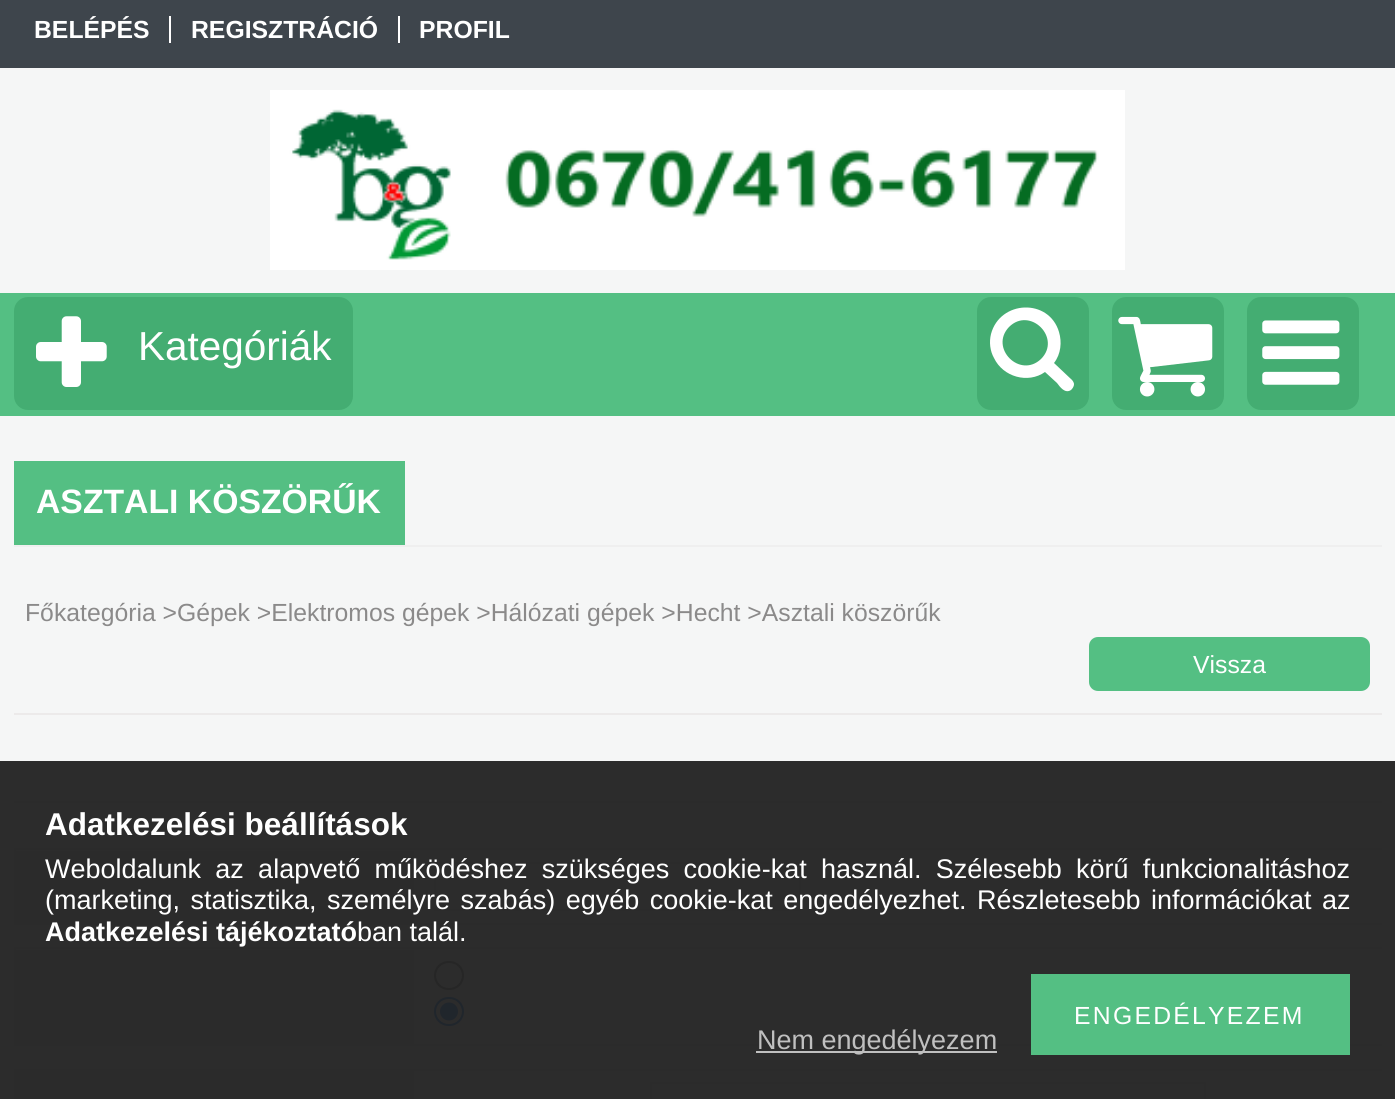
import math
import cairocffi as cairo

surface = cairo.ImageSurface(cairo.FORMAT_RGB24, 1395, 1099)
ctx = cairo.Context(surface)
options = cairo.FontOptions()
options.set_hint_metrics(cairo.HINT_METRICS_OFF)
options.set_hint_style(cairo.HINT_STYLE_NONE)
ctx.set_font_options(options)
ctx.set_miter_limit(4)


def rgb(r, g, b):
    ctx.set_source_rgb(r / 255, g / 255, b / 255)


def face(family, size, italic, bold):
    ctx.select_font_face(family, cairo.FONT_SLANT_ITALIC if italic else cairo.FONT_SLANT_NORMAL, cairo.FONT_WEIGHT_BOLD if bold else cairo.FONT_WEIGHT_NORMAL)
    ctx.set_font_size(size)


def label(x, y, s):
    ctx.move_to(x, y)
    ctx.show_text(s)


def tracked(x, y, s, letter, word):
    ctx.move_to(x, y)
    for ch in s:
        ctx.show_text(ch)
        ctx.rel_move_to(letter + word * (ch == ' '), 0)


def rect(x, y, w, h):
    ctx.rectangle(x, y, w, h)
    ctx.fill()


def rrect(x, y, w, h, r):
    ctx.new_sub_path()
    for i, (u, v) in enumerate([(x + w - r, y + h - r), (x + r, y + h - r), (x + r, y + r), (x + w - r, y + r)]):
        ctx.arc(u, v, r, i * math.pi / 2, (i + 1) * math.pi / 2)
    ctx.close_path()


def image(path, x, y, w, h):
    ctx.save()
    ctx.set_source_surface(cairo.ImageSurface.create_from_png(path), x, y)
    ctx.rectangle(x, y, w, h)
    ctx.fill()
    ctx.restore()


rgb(245, 246, 246)
ctx.paint()
rgb(62, 69, 76)
rect(0, 0, 1395, 68)
face('Liberation Sans', 24.75, 0, 1)
rgb(255, 255, 255)
label(34, 38, 'BELÉPÉS')
rect(169, 16, 2, 27)
label(191, 38, 'REGISZTRÁCIÓ')
rect(398, 16, 2, 27)
label(419, 38, 'PROFIL')
image('image0.png', 270, 90, 855, 180)
rgb(84, 191, 131)
rect(0, 293, 1395, 123)
rgb(68, 173, 114)
rrect(14, 297, 339, 113, 14)
ctx.fill()
image('image1.png', 36, 316, 71, 71)
face('Liberation Sans', 40.5, 0, 0)
rgb(255, 255, 255)
label(138, 360, 'Kategóriák')
rgb(68, 173, 114)
rrect(977, 297, 112, 113, 14)
ctx.fill()
rgb(255, 255, 255)
ctx.new_path()
ctx.move_to(1041, 359)
ctx.curve_to(1062, 338, 1030, 306, 1009, 327)
ctx.curve_to(989, 348, 1020, 379, 1041, 359)
ctx.close_path()
ctx.move_to(1074, 384)
ctx.curve_to(1074, 387, 1072, 389, 1071, 390)
ctx.curve_to(1065, 394, 1060, 387, 1057, 383)
ctx.line_to(1045, 372)
ctx.curve_to(1028, 384, 1003, 377, 994, 358)
ctx.curve_to(990, 351, 989, 342, 991, 334)
ctx.curve_to(1000, 300, 1049, 298, 1059, 332)
ctx.curve_to(1062, 342, 1061, 354, 1054, 363)
ctx.line_to(1072, 380)
ctx.curve_to(1073, 381, 1074, 383, 1074, 384)
ctx.close_path()
ctx.fill()
rgb(68, 173, 114)
rrect(1112, 297, 112, 113, 14)
ctx.fill()
image('image2.png', 1118, 316, 95, 81)
rrect(1247, 297, 112, 113, 14)
ctx.fill()
image('image3.png', 1262, 320, 78, 65)
rgb(239, 239, 239)
rect(14, 545, 1368, 2)
rgb(84, 191, 131)
rect(14, 461, 391, 84)
face('Liberation Sans', 33.75, 0, 1)
rgb(255, 255, 255)
label(36, 513, 'ASZTALI KÖSZÖRŰK')
face('Liberation Sans', 24.75, 0, 0)
rgb(139, 138, 138)
label(25, 621, 'Főkategória >Gépek >Elektromos gépek >Hálózati gépek >Hecht >Asztali köszörűk')
rgb(84, 191, 131)
rrect(1089, 637, 281, 54, 9)
ctx.fill()
rgb(255, 255, 255)
label(1193, 673, 'Vissza')
rgb(236, 234, 234)
rect(14, 713, 1368, 2)
rect(14, 801, 1368, 2)
ctx.save()
ctx.rectangle(14, 826, 1368, 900)
ctx.clip()
ctx.rectangle(15, 849, 1370, 75)
rgb(239, 239, 239)
ctx.stroke()
ctx.restore()
rgb(237, 237, 237)
rect(16, 851, 398, 72)
rgb(255, 255, 255)
ctx.rectangle(435, 863, 365, 47)
ctx.fill_preserve()
rgb(239, 239, 239)
ctx.stroke()
ctx.save()
ctx.rectangle(14, 826, 1368, 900)
ctx.clip()
ctx.rectangle(15, 948, 1370, 97)
ctx.stroke()
ctx.restore()
rgb(237, 237, 237)
rect(16, 950, 398, 94)
rgb(255, 255, 255)
rrect(435, 962, 28, 27, 13.5)
ctx.fill_preserve()
rgb(118, 118, 118)
ctx.stroke()
rgb(255, 255, 255)
rrect(435, 998, 28, 27, 13.5)
ctx.fill_preserve()
rgb(0, 117, 255)
ctx.stroke()
ctx.arc(449, 1011.5, 9, 0, 2 * math.pi)
ctx.fill()
ctx.save()
ctx.rectangle(14, 826, 1368, 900)
ctx.clip()
ctx.rectangle(15, 1070, 1370, 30)
rgb(239, 239, 239)
ctx.stroke()
ctx.restore()
rgb(237, 237, 237)
rect(16, 1071, 398, 28)
rgb(255, 255, 255)
ctx.rectangle(651, 1083, 554, 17)
ctx.fill_preserve()
rgb(239, 239, 239)
ctx.stroke()
ctx.set_source_rgba(0.133, 0.133, 0.133, 0.95)
rect(0, 761, 1395, 338)
face('Liberation Sans', 31.5, 0, 1)
rgb(255, 255, 255)
label(45, 835, 'Adatkezelési beállítások')
face('Liberation Sans', 27, 0, 0)
tracked(45, 878, 'Weboldalunk az alapvető működéshez szükséges cookie-kat használ. Szélesebb körű funkcionalitáshoz', 0, 6.75)
tracked(45, 909, '(marketing, statisztika, személyre szabás) egyéb cookie-kat engedélyezhet. Részletesebb információkat az', 0, 3)
face('Liberation Sans', 27, 0, 1)
label(45, 941, 'Adatkezelési tájékoztató')
face('Liberation Sans', 27, 0, 0)
label(357, 941, 'ban talál.')
rgb(84, 191, 131)
rect(1031, 974, 319, 81)
face('Liberation Sans', 24.75, 0, 0)
rgb(255, 255, 255)
tracked(1074, 1024, 'ENGEDÉLYEZEM', 2.25, 0)
rgb(192, 192, 192)
rect(756, 1051, 241, 2)
face('Liberation Sans', 27, 0, 0)
label(757, 1049, 'Nem engedélyezem')
surface.write_to_png('render.png')
